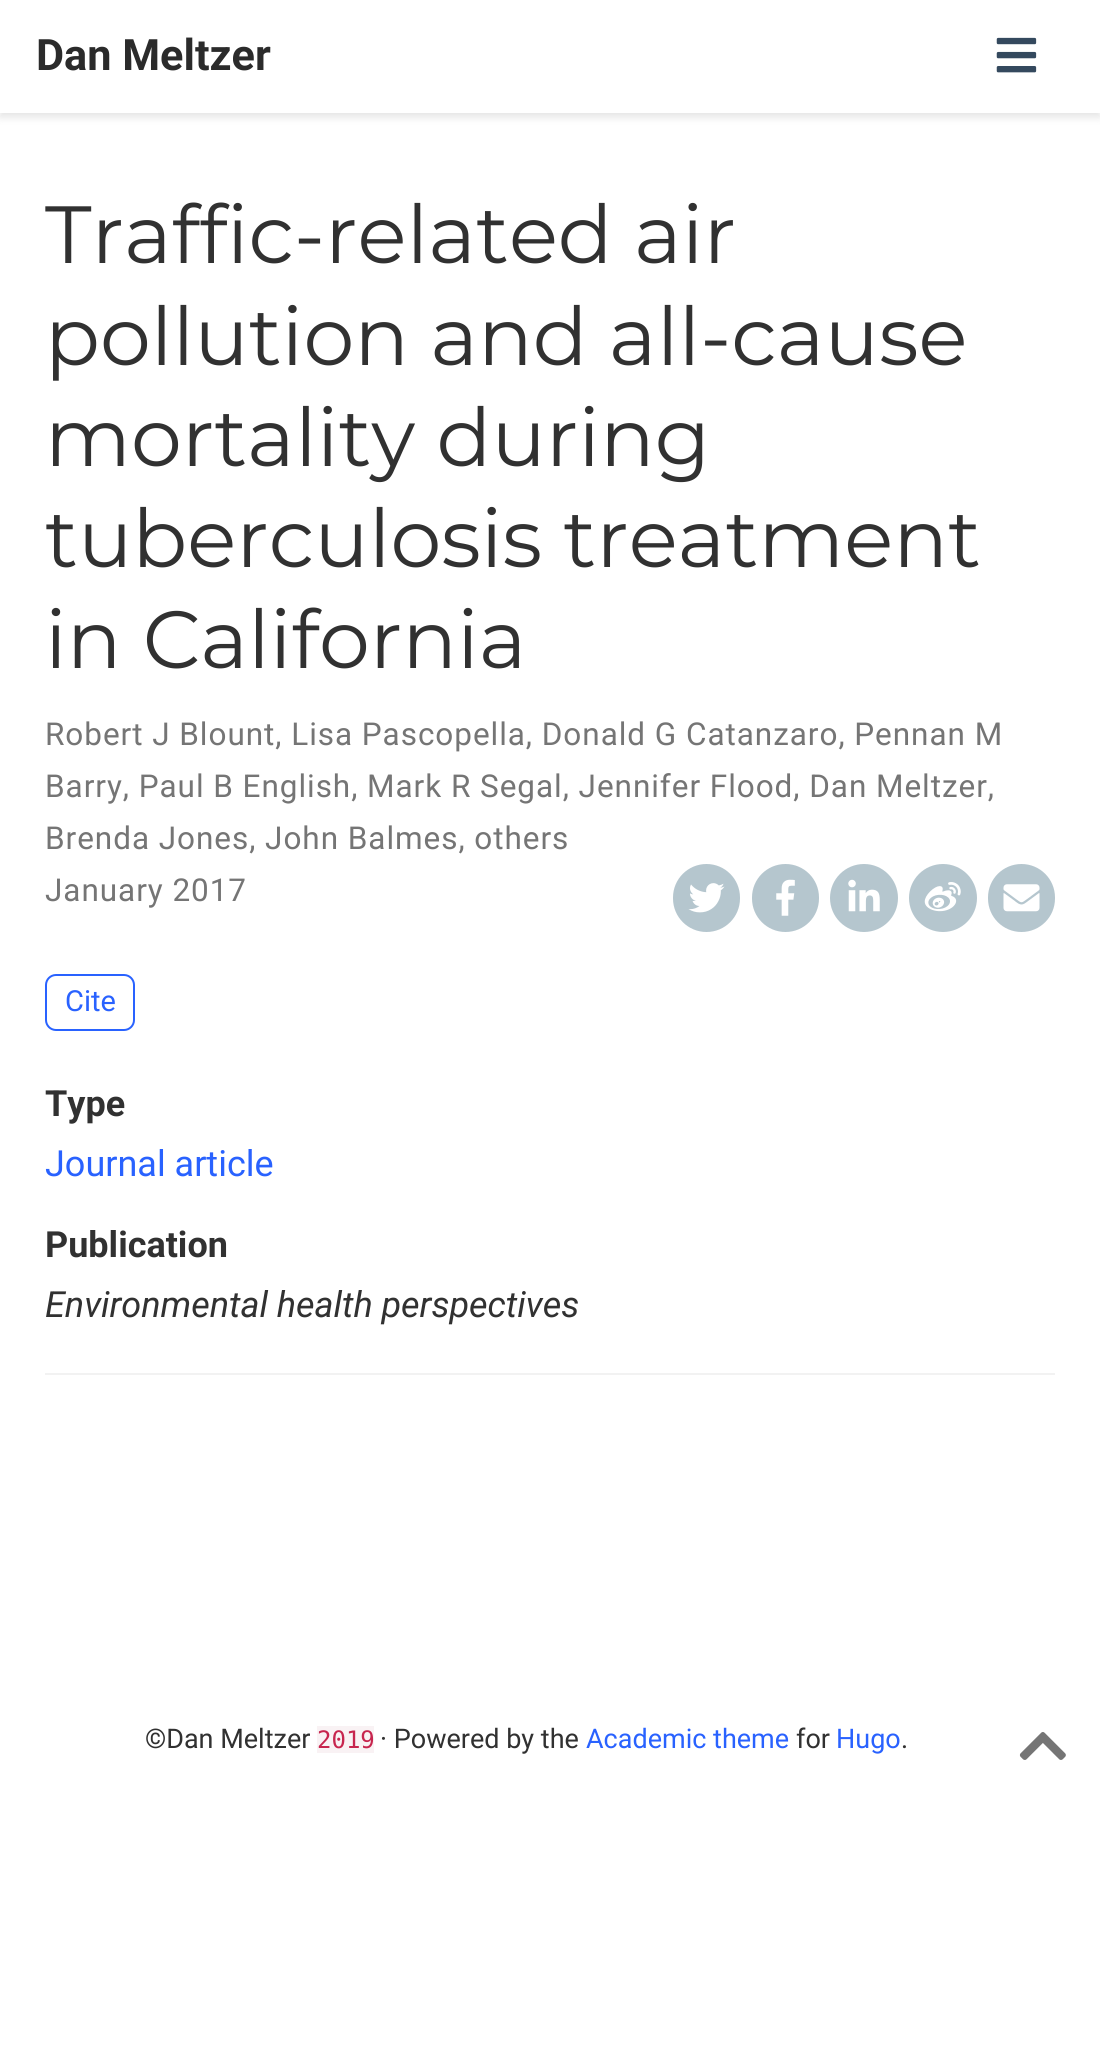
import math
import cairocffi as cairo

surface = cairo.ImageSurface(cairo.FORMAT_RGB24, 1100, 2046)
ctx = cairo.Context(surface)
options = cairo.FontOptions()
options.set_hint_metrics(cairo.HINT_METRICS_OFF)
options.set_hint_style(cairo.HINT_STYLE_NONE)
ctx.set_font_options(options)
ctx.set_miter_limit(4)


def rgb(r, g, b):
    ctx.set_source_rgb(r / 255, g / 255, b / 255)


def face(family, size, italic, bold):
    ctx.select_font_face(family, cairo.FONT_SLANT_ITALIC if italic else cairo.FONT_SLANT_NORMAL, cairo.FONT_WEIGHT_BOLD if bold else cairo.FONT_WEIGHT_NORMAL)
    ctx.set_font_size(size)


def label(x, y, s):
    ctx.move_to(x, y)
    ctx.show_text(s)


def tracked(x, y, s, letter, word):
    ctx.move_to(x, y)
    for ch in s:
        ctx.show_text(ch)
        ctx.rel_move_to(letter + word * (ch == ' '), 0)


def rect(x, y, w, h):
    ctx.rectangle(x, y, w, h)
    ctx.fill()


def rrect(x, y, w, h, r):
    ctx.new_sub_path()
    for i, (u, v) in enumerate([(x + w - r, y + h - r), (x + r, y + h - r), (x + r, y + r), (x + w - r, y + r)]):
        ctx.arc(u, v, r, i * math.pi / 2, (i + 1) * math.pi / 2)
    ctx.close_path()


def soft_shadow(x, y, w, h, r, blur, alpha):
    ctx.push_group_with_content(cairo.CONTENT_ALPHA)
    ctx.set_operator(cairo.OPERATOR_SOURCE)
    for i in range(15, -16, -2):
        e = blur * i / 6
        if min(w, h) + 2 * e > 0:
            ctx.set_source_rgba(0, 0, 0, alpha * math.erfc((i - 1) / 8.5) / 2)
            rrect(x - e, y - e, w + 2 * e, h + 2 * e, max(0, min(r + e + blur * .6, min(w, h) / 2 + e)))
            ctx.fill()
    ctx.mask(ctx.pop_group())


def image(path, x, y, w, h):
    ctx.save()
    ctx.set_source_surface(cairo.ImageSurface.create_from_png(path), x, y)
    ctx.rectangle(x, y, w, h)
    ctx.fill()
    ctx.restore()


rgb(255, 255, 255)
ctx.paint()
rgb(0, 0, 0)
soft_shadow(0, 5, 1100, 112, 0, 4.5, 0.11)
rgb(255, 255, 255)
rect(0, 0, 1100, 113)
face('Roboto', 43.25, 0, 1)
rgb(43, 43, 43)
label(36, 70, 'Dan Meltzer')
image('image0.png', 996, 37, 41, 36)
face('Montserrat', 81, 0, 0)
rgb(49, 49, 49)
label(45, 263, 'Traffic-related air')
label(45, 365, 'pollution and all-cause')
label(45, 466, 'mortality during')
label(45, 567, 'tuberculosis treatment')
label(45, 668, 'in California')
face('Roboto', 31.5, 0, 0)
rgb(117, 117, 117)
tracked(45, 745, 'Robert J Blount, Lisa Pascopella, Donald G Catanzaro, Pennan M', 0.95, 0)
tracked(45, 797, 'Barry, Paul B English, Mark R Segal, Jennifer Flood, Dan Meltzer,', 0.95, 0)
tracked(45, 849, 'Brenda Jones, John Balmes, others', 0.95, 0)
tracked(45, 901, 'January 2017', 0.95, 0)
rgb(181, 198, 206)
rrect(673, 864, 67, 68, 33.5)
ctx.fill()
image('image1.png', 688, 883, 37, 30)
rrect(752, 864, 67, 68, 33.5)
ctx.fill()
image('image2.png', 776, 879, 19, 37)
ctx.arc(864, 898, 34, 0, 2 * math.pi)
ctx.fill()
image('image3.png', 848, 879, 32, 33)
ctx.arc(943, 898, 34, 0, 2 * math.pi)
ctx.fill()
image('image4.png', 924, 882, 37, 30)
rrect(988, 864, 67, 68, 33.5)
ctx.fill()
image('image5.png', 1003, 884, 37, 28)
rrect(46, 975, 88, 55, 10)
rgb(41, 98, 255)
ctx.stroke()
face('Roboto', 29, 0, 0)
label(65, 1011, 'Cite')
face('Roboto', 36, 0, 1)
rgb(49, 49, 49)
label(45, 1116, 'Type')
face('Roboto', 36, 0, 0)
rgb(41, 98, 255)
label(45, 1176, 'Journal article')
face('Roboto', 36, 0, 1)
rgb(49, 49, 49)
label(45, 1257, 'Publication')
face('Roboto', 36, 1, 0)
label(45, 1317, 'Environmental health perspectives')
rgb(242, 242, 242)
rect(45, 1373, 1010, 2)
face('Roboto', 27, 0, 0)
rgb(49, 49, 49)
label(145, 1748, '©Dan Meltzer')
rgb(249, 242, 244)
rect(317, 1726, 57, 27)
face('DejaVu Sans Mono', 24, 0, 0)
rgb(199, 37, 78)
label(317, 1748, '2019')
face('Roboto', 27, 0, 0)
rgb(49, 49, 49)
label(380, 1748, '· Powered by the')
rgb(41, 98, 255)
label(586, 1748, 'Academic theme')
rgb(49, 49, 49)
label(796, 1748, 'for')
rgb(41, 98, 255)
label(836, 1748, 'Hugo')
rgb(49, 49, 49)
label(901, 1748, '.')
image('image6.png', 1019, 1732, 47, 28)
surface.write_to_png('render.png')
